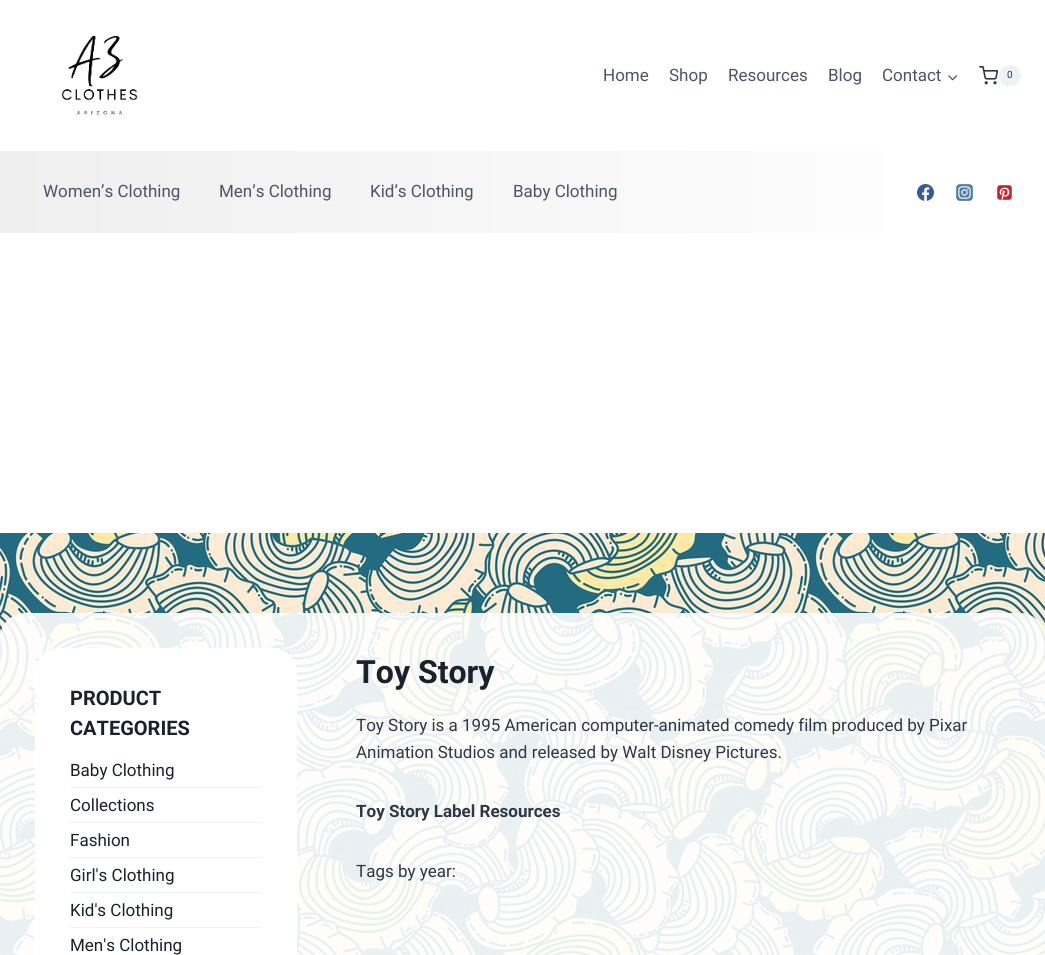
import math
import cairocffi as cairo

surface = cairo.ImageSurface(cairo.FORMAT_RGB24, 1045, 955)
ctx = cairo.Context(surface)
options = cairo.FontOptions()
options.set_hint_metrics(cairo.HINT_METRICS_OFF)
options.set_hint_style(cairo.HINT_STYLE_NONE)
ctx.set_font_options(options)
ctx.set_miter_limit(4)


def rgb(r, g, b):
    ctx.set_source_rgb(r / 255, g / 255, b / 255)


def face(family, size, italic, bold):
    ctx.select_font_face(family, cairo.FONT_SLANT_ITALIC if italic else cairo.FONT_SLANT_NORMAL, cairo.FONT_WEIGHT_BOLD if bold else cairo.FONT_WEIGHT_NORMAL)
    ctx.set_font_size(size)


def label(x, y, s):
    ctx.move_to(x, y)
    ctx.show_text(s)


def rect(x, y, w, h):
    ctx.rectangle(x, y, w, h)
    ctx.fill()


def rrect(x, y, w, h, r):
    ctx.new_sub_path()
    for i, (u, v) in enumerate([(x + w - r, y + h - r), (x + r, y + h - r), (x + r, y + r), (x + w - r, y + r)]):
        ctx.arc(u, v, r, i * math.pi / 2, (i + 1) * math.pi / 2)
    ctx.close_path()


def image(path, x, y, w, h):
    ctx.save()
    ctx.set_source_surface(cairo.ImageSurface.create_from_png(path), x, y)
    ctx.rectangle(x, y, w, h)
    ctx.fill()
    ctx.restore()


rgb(255, 255, 255)
ctx.paint()
image('image0.png', 0, 533, 1045, 422)
image('image1.png', 61, 35, 77, 80)
face('Roboto', 17, 0, 0)
rgb(74, 85, 104)
label(603, 81, 'Home')
label(669, 81, 'Shop')
label(728, 81, 'Resources')
label(828, 81, 'Blog')
label(882, 81, 'Contact')
image('image2.png', 948, 75, 10, 6)
image('image3.png', 979, 66, 19, 19)
rgb(237, 242, 247)
rrect(999, 65, 22, 21, 10.5)
ctx.fill()
face('Roboto', 10, 0, 0)
rgb(45, 55, 72)
label(1007, 78, '0')
gradient = cairo.LinearGradient(0, 192, 1045, 192)
gradient.add_color_stop_rgba(0, 0.937, 0.937, 0.937, 1)
gradient.add_color_stop_rgba(1, 1, 1, 1, 1)
ctx.set_source(gradient)
rect(0, 151, 882, 82)
face('Roboto', 17, 0, 0)
rgb(74, 85, 104)
label(43, 197, 'Women’s Clothing')
label(219, 197, 'Men’s Clothing')
label(370, 197, 'Kid’s Clothing')
label(513, 197, 'Baby Clothing')
image('image4.png', 917, 184, 17, 17)
image('image5.png', 956, 184, 17, 17)
image('image6.png', 997, 185, 15, 15)
ctx.set_source_rgba(1, 1, 1, 0.9)
rrect(0, 613, 1045, 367, 25)
ctx.fill()
rgb(255, 255, 255)
rrect(35, 648, 262, 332, 25)
ctx.fill()
face('Roboto', 20, 0, 1)
rgb(26, 32, 44)
label(70, 705, 'PRODUCT')
label(70, 735, 'CATEGORIES')
rgb(237, 242, 247)
rect(70, 787, 192, 1)
face('Roboto', 17, 0, 0)
rgb(26, 32, 44)
label(70, 776, 'Baby Clothing')
rgb(237, 242, 247)
rect(70, 822, 192, 1)
rgb(26, 32, 44)
label(70, 811, 'Collections')
rgb(237, 242, 247)
rect(70, 857, 192, 1)
rgb(26, 32, 44)
label(70, 846, 'Fashion')
rgb(237, 242, 247)
rect(70, 892, 192, 1)
rgb(26, 32, 44)
label(70, 881, 'Girl\'s Clothing')
rgb(237, 242, 247)
rect(70, 927, 192, 1)
rgb(26, 32, 44)
label(70, 916, 'Kid\'s Clothing')
label(70, 951, 'Men\'s Clothing')
face('Roboto', 32, 0, 1)
label(356, 683, 'Toy Story')
face('Roboto', 17, 0, 0)
rgb(45, 55, 72)
label(356, 731, 'Toy Story is a 1995 American computer-animated comedy film produced by Pixar')
label(356, 758, 'Animation Studios and released by Walt Disney Pictures.')
face('Roboto', 17, 0, 1)
label(356, 817, 'Toy Story Label Resources')
face('Roboto', 17, 0, 0)
label(356, 877, 'Tags by year:')
surface.write_to_png('render.png')
